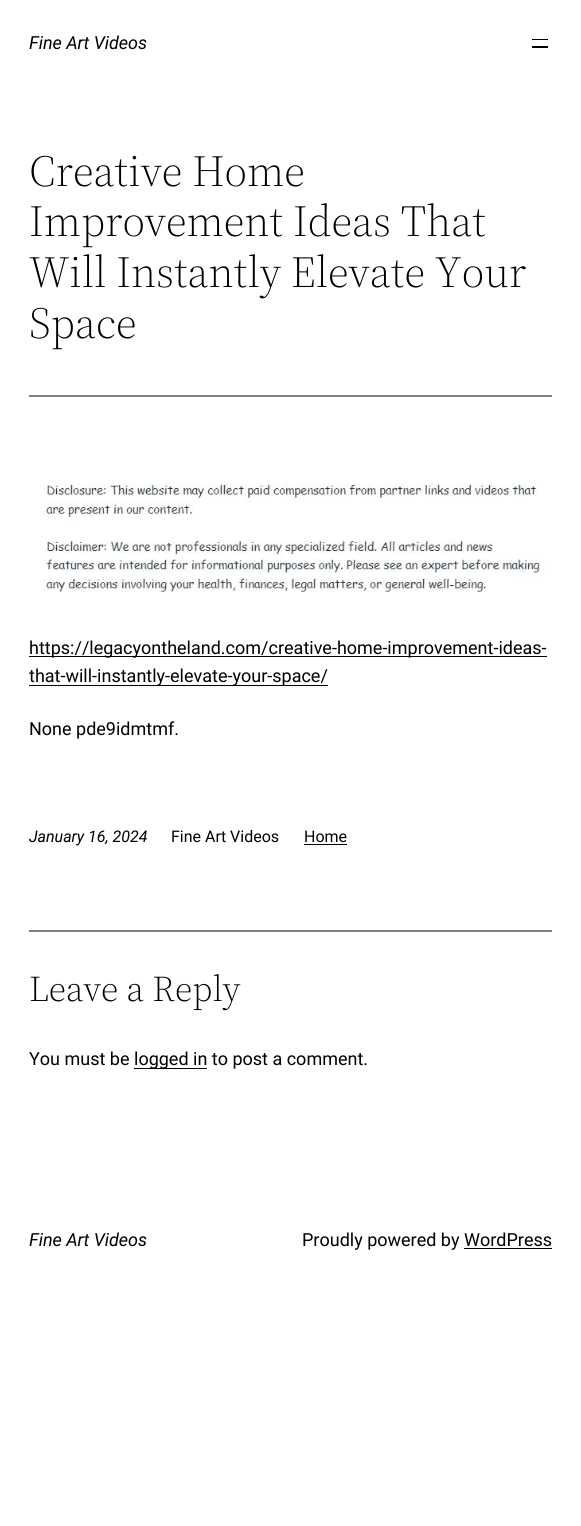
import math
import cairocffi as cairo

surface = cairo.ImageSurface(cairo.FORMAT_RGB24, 581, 1526)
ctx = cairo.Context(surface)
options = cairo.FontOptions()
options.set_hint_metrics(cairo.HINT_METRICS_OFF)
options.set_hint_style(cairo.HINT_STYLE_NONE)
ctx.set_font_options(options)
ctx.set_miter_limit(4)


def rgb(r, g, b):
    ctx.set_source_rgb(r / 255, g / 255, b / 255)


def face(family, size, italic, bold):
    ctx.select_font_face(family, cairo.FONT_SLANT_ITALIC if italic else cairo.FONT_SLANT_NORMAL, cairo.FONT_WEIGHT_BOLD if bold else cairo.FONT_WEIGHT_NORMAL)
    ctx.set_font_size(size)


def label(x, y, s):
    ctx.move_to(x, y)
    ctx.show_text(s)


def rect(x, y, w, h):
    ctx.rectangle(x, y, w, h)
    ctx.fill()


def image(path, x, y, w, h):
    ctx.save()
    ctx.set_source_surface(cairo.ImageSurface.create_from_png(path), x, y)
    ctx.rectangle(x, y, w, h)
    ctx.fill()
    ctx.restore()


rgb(255, 255, 255)
ctx.paint()
face('Roboto', 18, 1, 0)
rgb(0, 0, 0)
label(29, 49, 'Fine Art Videos')
rect(532, 39, 16, 1)
rect(532, 46, 16, 2)
face('Source Serif 4 Light', 44, 0, 0)
label(29, 186, 'Creative Home')
label(29, 236, 'Improvement Ideas That')
label(29, 287, 'Will Instantly Elevate Your')
label(29, 338, 'Space')
rgb(128, 128, 128)
rect(29, 395, 523, 2)
image('image0.png', 42, 483, 503, 109)
rgb(0, 0, 0)
rect(29, 656, 518, 1)
face('Roboto', 18, 0, 0)
label(29, 654, 'https://legacyontheland.com/creative-home-improvement-ideas-')
rect(29, 685, 299, 1)
label(29, 682, 'that-will-instantly-elevate-your-space/')
label(29, 735, 'None pde9idmtmf.')
face('Roboto', 16, 1, 0)
label(29, 842, 'January 16, 2024')
face('Roboto', 16, 0, 0)
label(171, 842, 'Fine Art Videos')
label(304, 842, 'Home')
rect(304, 844, 43, 1)
rgb(128, 128, 128)
rect(29, 930, 523, 2)
face('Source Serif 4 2 Light', 36, 0, 0)
rgb(0, 0, 0)
label(29, 1001, 'Leave a Reply')
face('Roboto', 18, 0, 0)
label(29, 1065, 'You must be')
rect(134, 1068, 73, 1)
label(134, 1065, 'logged in to post a comment.')
face('Roboto', 18, 1, 0)
label(29, 1246, 'Fine Art Videos')
face('Roboto', 18, 0, 0)
label(302, 1246, 'Proudly powered by WordPress')
rect(464, 1248, 88, 1)
surface.write_to_png('render.png')
